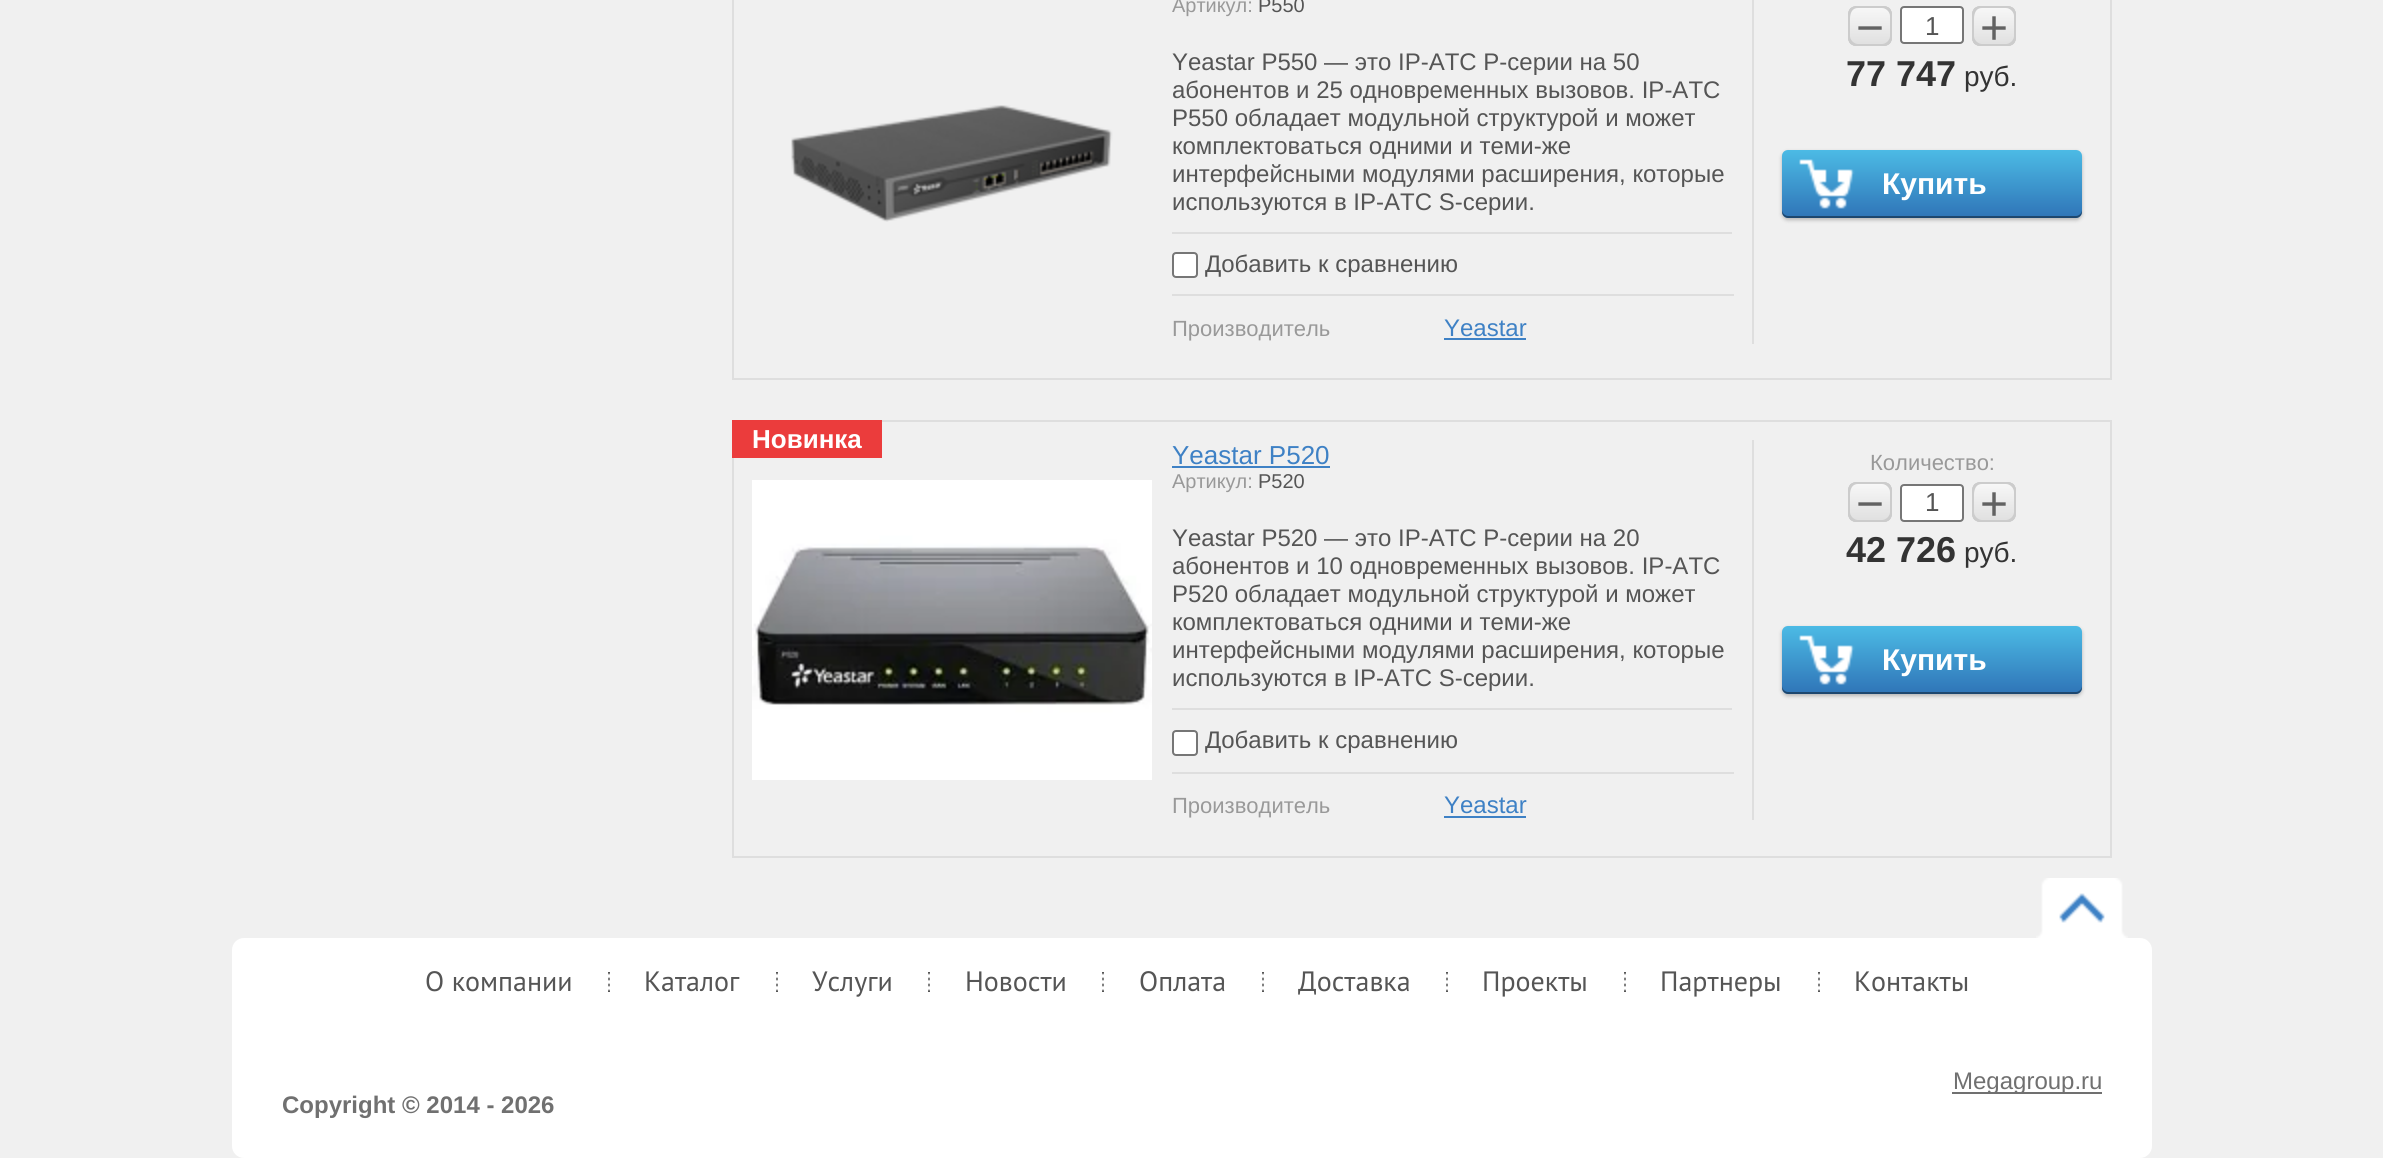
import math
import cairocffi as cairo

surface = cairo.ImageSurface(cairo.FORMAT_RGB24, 2383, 1158)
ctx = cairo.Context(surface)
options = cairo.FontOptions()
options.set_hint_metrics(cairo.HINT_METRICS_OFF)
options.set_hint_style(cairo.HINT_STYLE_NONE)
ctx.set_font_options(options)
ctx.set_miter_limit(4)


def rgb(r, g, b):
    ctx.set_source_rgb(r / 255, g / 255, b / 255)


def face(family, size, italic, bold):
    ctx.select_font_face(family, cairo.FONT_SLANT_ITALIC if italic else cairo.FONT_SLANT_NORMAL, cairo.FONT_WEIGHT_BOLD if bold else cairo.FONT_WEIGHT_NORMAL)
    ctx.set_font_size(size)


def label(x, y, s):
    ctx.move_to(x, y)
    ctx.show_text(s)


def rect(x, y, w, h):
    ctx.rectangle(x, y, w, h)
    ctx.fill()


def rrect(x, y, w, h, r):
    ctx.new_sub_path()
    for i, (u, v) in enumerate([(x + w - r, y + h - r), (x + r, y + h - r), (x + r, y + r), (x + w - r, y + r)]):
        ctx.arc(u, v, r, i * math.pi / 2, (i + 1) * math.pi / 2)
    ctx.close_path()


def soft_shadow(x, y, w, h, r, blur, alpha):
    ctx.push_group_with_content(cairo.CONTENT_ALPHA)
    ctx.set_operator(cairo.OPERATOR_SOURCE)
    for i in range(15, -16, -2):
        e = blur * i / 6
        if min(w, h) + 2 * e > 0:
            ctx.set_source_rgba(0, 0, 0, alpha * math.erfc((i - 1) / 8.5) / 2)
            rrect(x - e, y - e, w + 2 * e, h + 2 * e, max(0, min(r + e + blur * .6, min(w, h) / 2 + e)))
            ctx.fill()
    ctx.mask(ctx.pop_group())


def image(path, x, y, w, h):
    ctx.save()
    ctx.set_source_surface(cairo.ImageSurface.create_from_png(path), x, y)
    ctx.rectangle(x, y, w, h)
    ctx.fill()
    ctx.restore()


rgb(240, 240, 240)
ctx.paint()
ctx.rectangle(733, -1, 1378, 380)
rgb(222, 222, 222)
ctx.stroke()
image('image0.png', 791, 105, 322, 117)
face('Liberation Sans', 20, 0, 0)
rgb(153, 153, 153)
label(1172, 12, 'Артикул:')
rgb(85, 85, 85)
label(1258, 12, 'P550')
face('Liberation Sans', 24, 0, 0)
label(1172, 70, 'Yeastar P550 — это IP-АТС P-серии на 50')
label(1172, 98, 'абонентов и 25 одновременных вызовов. IP-АТС')
label(1172, 126, 'P550 обладает модульной структурой и может')
label(1172, 154, 'комплектоваться одними и теми-же')
label(1172, 182, 'интерфейсными модулями расширения, которые')
label(1172, 210, 'используются в IP-АТС S-серии.')
rgb(222, 222, 222)
rect(1172, 232, 560, 2)
rgb(255, 255, 255)
rrect(1173, 253, 24, 24, 3)
ctx.fill_preserve()
rgb(118, 118, 118)
ctx.stroke()
rgb(85, 85, 85)
label(1205, 272, 'Добавить к сравнению')
face('Liberation Sans', 22, 0, 0)
rgb(153, 153, 153)
label(1172, 336, 'Производитель')
rgb(222, 222, 222)
rect(1172, 294, 562, 2)
face('Liberation Sans', 24, 0, 0)
rgb(62, 129, 197)
label(1444, 336, 'Yeastar')
rect(1444, 338, 82, 2)
rgb(222, 222, 222)
rect(1752, 0, 2, 344)
gradient = cairo.LinearGradient(1870, 6, 1870, 46)
gradient.add_color_stop_rgba(0, 0.973, 0.973, 0.973, 1)
gradient.add_color_stop_rgba(1, 0.875, 0.875, 0.875, 1)
ctx.set_source(gradient)
rrect(1848, 6, 44, 40, 8)
ctx.fill()
rgb(204, 204, 204)
ctx.new_path()
ctx.move_to(1852, 7)
ctx.curve_to(1850, 8, 1848, 11, 1848, 14)
ctx.line_to(1848, 38)
ctx.curve_to(1848, 42, 1852, 46, 1856, 46)
ctx.line_to(1884, 46)
ctx.curve_to(1887, 46, 1890, 44, 1891, 42)
ctx.curve_to(1889, 43, 1888, 44, 1886, 44)
ctx.line_to(1858, 44)
ctx.curve_to(1854, 44, 1850, 40, 1850, 36)
ctx.line_to(1850, 12)
ctx.curve_to(1850, 10, 1851, 9, 1852, 7)
ctx.close_path()
ctx.fill()
ctx.new_path()
ctx.move_to(1854, 8)
ctx.line_to(1882, 8)
ctx.curve_to(1886, 8, 1890, 12, 1890, 16)
ctx.line_to(1890, 40)
ctx.curve_to(1890, 42, 1889, 43, 1888, 45)
ctx.curve_to(1890, 44, 1892, 41, 1892, 38)
ctx.line_to(1892, 14)
ctx.curve_to(1892, 10, 1888, 6, 1884, 6)
ctx.line_to(1856, 6)
ctx.curve_to(1853, 6, 1850, 8, 1849, 10)
ctx.curve_to(1851, 9, 1852, 8, 1854, 8)
ctx.close_path()
ctx.fill()
ctx.new_path()
ctx.move_to(1849, 42)
ctx.curve_to(1850, 44, 1853, 46, 1856, 46)
ctx.line_to(1884, 46)
ctx.curve_to(1888, 46, 1892, 42, 1892, 38)
ctx.line_to(1892, 14)
ctx.curve_to(1892, 11, 1890, 8, 1888, 7)
ctx.curve_to(1889, 9, 1890, 10, 1890, 12)
ctx.line_to(1890, 36)
ctx.curve_to(1890, 40, 1886, 44, 1882, 44)
ctx.line_to(1854, 44)
ctx.curve_to(1852, 44, 1851, 43, 1849, 42)
ctx.close_path()
ctx.fill()
ctx.new_path()
ctx.move_to(1858, 8)
ctx.line_to(1886, 8)
ctx.curve_to(1888, 8, 1889, 9, 1891, 10)
ctx.curve_to(1890, 8, 1887, 6, 1884, 6)
ctx.line_to(1856, 6)
ctx.curve_to(1852, 6, 1848, 10, 1848, 14)
ctx.line_to(1848, 38)
ctx.curve_to(1848, 41, 1850, 44, 1852, 45)
ctx.curve_to(1848, 41, 1850, 33, 1850, 28)
ctx.curve_to(1850, 22, 1848, 8, 1858, 8)
ctx.close_path()
ctx.fill()
face('Liberation Sans', 48, 0, 0)
rgb(98, 98, 98)
label(1856, 44, '−')
rgb(255, 255, 255)
rrect(1901, 7, 62, 36, 3)
ctx.fill_preserve()
rgb(118, 118, 118)
ctx.stroke()
face('Liberation Sans', 26, 0, 0)
rgb(85, 85, 85)
label(1925, 35, '1')
gradient = cairo.LinearGradient(1994, 6, 1994, 46)
gradient.add_color_stop_rgba(0, 0.973, 0.973, 0.973, 1)
gradient.add_color_stop_rgba(1, 0.875, 0.875, 0.875, 1)
ctx.set_source(gradient)
rrect(1972, 6, 44, 40, 8)
ctx.fill()
rgb(204, 204, 204)
ctx.new_path()
ctx.move_to(1976, 7)
ctx.curve_to(1974, 8, 1972, 11, 1972, 14)
ctx.line_to(1972, 38)
ctx.curve_to(1972, 42, 1976, 46, 1980, 46)
ctx.line_to(2008, 46)
ctx.curve_to(2011, 46, 2014, 44, 2015, 42)
ctx.curve_to(2013, 43, 2012, 44, 2010, 44)
ctx.line_to(1982, 44)
ctx.curve_to(1978, 44, 1974, 40, 1974, 36)
ctx.line_to(1974, 12)
ctx.curve_to(1974, 10, 1975, 9, 1976, 7)
ctx.close_path()
ctx.fill()
ctx.new_path()
ctx.move_to(1978, 8)
ctx.line_to(2006, 8)
ctx.curve_to(2010, 8, 2014, 12, 2014, 16)
ctx.line_to(2014, 40)
ctx.curve_to(2014, 42, 2013, 43, 2012, 45)
ctx.curve_to(2014, 44, 2016, 41, 2016, 38)
ctx.line_to(2016, 14)
ctx.curve_to(2016, 10, 2012, 6, 2008, 6)
ctx.line_to(1980, 6)
ctx.curve_to(1977, 6, 1974, 8, 1973, 10)
ctx.curve_to(1975, 9, 1976, 8, 1978, 8)
ctx.close_path()
ctx.fill()
ctx.new_path()
ctx.move_to(1973, 42)
ctx.curve_to(1974, 44, 1977, 46, 1980, 46)
ctx.line_to(2008, 46)
ctx.curve_to(2012, 46, 2016, 42, 2016, 38)
ctx.line_to(2016, 14)
ctx.curve_to(2016, 11, 2014, 8, 2012, 7)
ctx.curve_to(2013, 9, 2014, 10, 2014, 12)
ctx.line_to(2014, 36)
ctx.curve_to(2014, 40, 2010, 44, 2006, 44)
ctx.line_to(1978, 44)
ctx.curve_to(1976, 44, 1975, 43, 1973, 42)
ctx.close_path()
ctx.fill()
ctx.new_path()
ctx.move_to(1982, 8)
ctx.line_to(2010, 8)
ctx.curve_to(2012, 8, 2013, 9, 2015, 10)
ctx.curve_to(2014, 8, 2011, 6, 2008, 6)
ctx.line_to(1980, 6)
ctx.curve_to(1976, 6, 1972, 10, 1972, 14)
ctx.line_to(1972, 38)
ctx.curve_to(1972, 41, 1974, 44, 1976, 45)
ctx.curve_to(1972, 41, 1974, 33, 1974, 28)
ctx.curve_to(1974, 22, 1972, 8, 1982, 8)
ctx.close_path()
ctx.fill()
face('Liberation Sans', 48, 0, 0)
rgb(98, 98, 98)
label(1980, 44, '+')
face('Liberation Sans', 36, 0, 1)
rgb(51, 51, 51)
label(1846, 86, '77 747')
face('Liberation Sans', 28, 0, 0)
label(1964, 86, 'руб.')
rgb(0, 0, 0)
soft_shadow(1782, 152, 300, 68, 6, 2, 0.25)
gradient = cairo.LinearGradient(1932, 150, 1932, 218)
gradient.add_color_stop_rgba(0, 0.298, 0.733, 0.898, 1)
gradient.add_color_stop_rgba(1, 0.184, 0.455, 0.718, 1)
ctx.set_source(gradient)
rrect(1782, 150, 300, 68, 6)
ctx.fill()
ctx.set_source_rgba(0, 0, 0, 0.4)
ctx.new_path()
ctx.move_to(1782, 210)
ctx.line_to(1782, 212)
ctx.curve_to(1782, 215, 1785, 218, 1788, 218)
ctx.line_to(2076, 218)
ctx.curve_to(2079, 218, 2082, 215, 2082, 212)
ctx.line_to(2082, 210)
ctx.curve_to(2082, 213, 2079, 216, 2076, 216)
ctx.line_to(1788, 216)
ctx.curve_to(1785, 216, 1782, 213, 1782, 210)
ctx.close_path()
ctx.fill()
image('image1.png', 1799, 159, 56, 50)
face('Liberation Sans', 30, 0, 1)
rgb(255, 255, 255)
label(1882, 194, 'Купить')
ctx.rectangle(733, 421, 1378, 436)
rgb(222, 222, 222)
ctx.stroke()
rgb(235, 60, 60)
rect(732, 420, 150, 38)
face('Liberation Sans', 26, 0, 1)
rgb(255, 255, 255)
label(752, 448, 'Новинка')
image('image2.png', 752, 480, 400, 300)
face('Liberation Sans', 26, 0, 0)
rgb(62, 129, 197)
label(1172, 464, 'Yeastar P520')
rect(1172, 466, 158, 2)
face('Liberation Sans', 20, 0, 0)
rgb(153, 153, 153)
label(1172, 488, 'Артикул:')
rgb(85, 85, 85)
label(1258, 488, 'P520')
face('Liberation Sans', 24, 0, 0)
label(1172, 546, 'Yeastar P520 — это IP-АТС P-серии на 20')
label(1172, 574, 'абонентов и 10 одновременных вызовов. IP-АТС')
label(1172, 602, 'P520 обладает модульной структурой и может')
label(1172, 630, 'комплектоваться одними и теми-же')
label(1172, 658, 'интерфейсными модулями расширения, которые')
label(1172, 686, 'используются в IP-АТС S-серии.')
rgb(222, 222, 222)
rect(1172, 708, 560, 2)
rgb(255, 255, 255)
rrect(1173, 731, 24, 24, 3)
ctx.fill_preserve()
rgb(118, 118, 118)
ctx.stroke()
rgb(85, 85, 85)
label(1205, 748, 'Добавить к сравнению')
face('Liberation Sans', 22, 0, 0)
rgb(153, 153, 153)
label(1172, 813, 'Производитель')
rgb(222, 222, 222)
rect(1172, 772, 562, 2)
face('Liberation Sans', 24, 0, 0)
rgb(62, 129, 197)
label(1444, 813, 'Yeastar')
rect(1444, 816, 82, 2)
rgb(222, 222, 222)
rect(1752, 440, 2, 380)
face('Liberation Sans', 22, 0, 0)
rgb(153, 153, 153)
label(1870, 470, 'Количество:')
gradient = cairo.LinearGradient(1870, 482, 1870, 522)
gradient.add_color_stop_rgba(0, 0.973, 0.973, 0.973, 1)
gradient.add_color_stop_rgba(1, 0.875, 0.875, 0.875, 1)
ctx.set_source(gradient)
rrect(1848, 482, 44, 40, 8)
ctx.fill()
rgb(204, 204, 204)
ctx.new_path()
ctx.move_to(1852, 483)
ctx.curve_to(1850, 484, 1848, 487, 1848, 490)
ctx.line_to(1848, 514)
ctx.curve_to(1848, 518, 1852, 522, 1856, 522)
ctx.line_to(1884, 522)
ctx.curve_to(1887, 522, 1890, 520, 1891, 518)
ctx.curve_to(1889, 519, 1888, 520, 1886, 520)
ctx.line_to(1858, 520)
ctx.curve_to(1854, 520, 1850, 516, 1850, 512)
ctx.line_to(1850, 488)
ctx.curve_to(1850, 486, 1851, 485, 1852, 483)
ctx.close_path()
ctx.fill()
ctx.new_path()
ctx.move_to(1854, 484)
ctx.line_to(1882, 484)
ctx.curve_to(1886, 484, 1890, 488, 1890, 492)
ctx.line_to(1890, 516)
ctx.curve_to(1890, 518, 1889, 519, 1888, 521)
ctx.curve_to(1890, 520, 1892, 517, 1892, 514)
ctx.line_to(1892, 490)
ctx.curve_to(1892, 486, 1888, 482, 1884, 482)
ctx.line_to(1856, 482)
ctx.curve_to(1853, 482, 1850, 484, 1849, 486)
ctx.curve_to(1851, 485, 1852, 484, 1854, 484)
ctx.close_path()
ctx.fill()
ctx.new_path()
ctx.move_to(1849, 518)
ctx.curve_to(1850, 520, 1853, 522, 1856, 522)
ctx.line_to(1884, 522)
ctx.curve_to(1888, 522, 1892, 518, 1892, 514)
ctx.line_to(1892, 490)
ctx.curve_to(1892, 487, 1890, 484, 1888, 483)
ctx.curve_to(1889, 485, 1890, 486, 1890, 488)
ctx.line_to(1890, 512)
ctx.curve_to(1890, 516, 1886, 520, 1882, 520)
ctx.line_to(1854, 520)
ctx.curve_to(1852, 520, 1851, 519, 1849, 518)
ctx.close_path()
ctx.fill()
ctx.new_path()
ctx.move_to(1858, 484)
ctx.line_to(1886, 484)
ctx.curve_to(1888, 484, 1889, 485, 1891, 486)
ctx.curve_to(1890, 484, 1887, 482, 1884, 482)
ctx.line_to(1856, 482)
ctx.curve_to(1852, 482, 1848, 486, 1848, 490)
ctx.line_to(1848, 514)
ctx.curve_to(1848, 517, 1850, 520, 1852, 521)
ctx.curve_to(1848, 517, 1850, 509, 1850, 504)
ctx.curve_to(1850, 498, 1848, 484, 1858, 484)
ctx.close_path()
ctx.fill()
face('Liberation Sans', 48, 0, 0)
rgb(98, 98, 98)
label(1856, 520, '−')
rgb(255, 255, 255)
rrect(1901, 485, 62, 36, 3)
ctx.fill_preserve()
rgb(118, 118, 118)
ctx.stroke()
face('Liberation Sans', 26, 0, 0)
rgb(85, 85, 85)
label(1925, 511, '1')
gradient = cairo.LinearGradient(1994, 482, 1994, 522)
gradient.add_color_stop_rgba(0, 0.973, 0.973, 0.973, 1)
gradient.add_color_stop_rgba(1, 0.875, 0.875, 0.875, 1)
ctx.set_source(gradient)
rrect(1972, 482, 44, 40, 8)
ctx.fill()
rgb(204, 204, 204)
ctx.new_path()
ctx.move_to(1976, 483)
ctx.curve_to(1974, 484, 1972, 487, 1972, 490)
ctx.line_to(1972, 514)
ctx.curve_to(1972, 518, 1976, 522, 1980, 522)
ctx.line_to(2008, 522)
ctx.curve_to(2011, 522, 2014, 520, 2015, 518)
ctx.curve_to(2013, 519, 2012, 520, 2010, 520)
ctx.line_to(1982, 520)
ctx.curve_to(1978, 520, 1974, 516, 1974, 512)
ctx.line_to(1974, 488)
ctx.curve_to(1974, 486, 1975, 485, 1976, 483)
ctx.close_path()
ctx.fill()
ctx.new_path()
ctx.move_to(1978, 484)
ctx.line_to(2006, 484)
ctx.curve_to(2010, 484, 2014, 488, 2014, 492)
ctx.line_to(2014, 516)
ctx.curve_to(2014, 518, 2013, 519, 2012, 521)
ctx.curve_to(2014, 520, 2016, 517, 2016, 514)
ctx.line_to(2016, 490)
ctx.curve_to(2016, 486, 2012, 482, 2008, 482)
ctx.line_to(1980, 482)
ctx.curve_to(1977, 482, 1974, 484, 1973, 486)
ctx.curve_to(1975, 485, 1976, 484, 1978, 484)
ctx.close_path()
ctx.fill()
ctx.new_path()
ctx.move_to(1973, 518)
ctx.curve_to(1974, 520, 1977, 522, 1980, 522)
ctx.line_to(2008, 522)
ctx.curve_to(2012, 522, 2016, 518, 2016, 514)
ctx.line_to(2016, 490)
ctx.curve_to(2016, 487, 2014, 484, 2012, 483)
ctx.curve_to(2013, 485, 2014, 486, 2014, 488)
ctx.line_to(2014, 512)
ctx.curve_to(2014, 516, 2010, 520, 2006, 520)
ctx.line_to(1978, 520)
ctx.curve_to(1976, 520, 1975, 519, 1973, 518)
ctx.close_path()
ctx.fill()
ctx.new_path()
ctx.move_to(1982, 484)
ctx.line_to(2010, 484)
ctx.curve_to(2012, 484, 2013, 485, 2015, 486)
ctx.curve_to(2014, 484, 2011, 482, 2008, 482)
ctx.line_to(1980, 482)
ctx.curve_to(1976, 482, 1972, 486, 1972, 490)
ctx.line_to(1972, 514)
ctx.curve_to(1972, 517, 1974, 520, 1976, 521)
ctx.curve_to(1972, 517, 1974, 509, 1974, 504)
ctx.curve_to(1974, 498, 1972, 484, 1982, 484)
ctx.close_path()
ctx.fill()
face('Liberation Sans', 48, 0, 0)
rgb(98, 98, 98)
label(1980, 520, '+')
face('Liberation Sans', 36, 0, 1)
rgb(51, 51, 51)
label(1846, 562, '42 726')
face('Liberation Sans', 28, 0, 0)
label(1964, 562, 'руб.')
rgb(0, 0, 0)
soft_shadow(1782, 628, 300, 68, 6, 2, 0.25)
gradient = cairo.LinearGradient(1932, 626, 1932, 694)
gradient.add_color_stop_rgba(0, 0.298, 0.733, 0.898, 1)
gradient.add_color_stop_rgba(1, 0.184, 0.455, 0.718, 1)
ctx.set_source(gradient)
rrect(1782, 626, 300, 68, 6)
ctx.fill()
ctx.set_source_rgba(0, 0, 0, 0.4)
ctx.new_path()
ctx.move_to(1782, 686)
ctx.line_to(1782, 688)
ctx.curve_to(1782, 691, 1785, 694, 1788, 694)
ctx.line_to(2076, 694)
ctx.curve_to(2079, 694, 2082, 691, 2082, 688)
ctx.line_to(2082, 686)
ctx.curve_to(2082, 689, 2079, 692, 2076, 692)
ctx.line_to(1788, 692)
ctx.curve_to(1785, 692, 1782, 689, 1782, 686)
ctx.close_path()
ctx.fill()
image('image1.png', 1799, 635, 56, 50)
face('Liberation Sans', 30, 0, 1)
rgb(255, 255, 255)
label(1882, 670, 'Купить')
rrect(232, 938, 1920, 220, 12)
ctx.fill()
image('image3.png', 2036, 878, 92, 60)
face('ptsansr', 28, 0, 0)
rgb(85, 85, 85)
label(425, 991, 'О компании')
image('image4.png', 608, 972, 2, 20)
label(644, 991, 'Каталог')
image('image4.png', 776, 972, 2, 20)
label(812, 991, 'Услуги')
image('image4.png', 928, 972, 2, 20)
label(965, 991, 'Новости')
image('image4.png', 1102, 972, 2, 20)
label(1139, 991, 'Оплата')
image('image4.png', 1262, 972, 2, 20)
label(1298, 991, 'Доставка')
image('image4.png', 1446, 972, 2, 20)
label(1482, 991, 'Проекты')
image('image4.png', 1624, 972, 2, 20)
label(1660, 991, 'Партнеры')
image('image4.png', 1818, 972, 2, 20)
label(1854, 991, 'Контакты')
rgb(112, 112, 112)
rect(1952, 1092, 150, 2)
face('Liberation Sans', 24, 0, 0)
label(1953, 1089, 'Megagroup.ru')
face('Liberation Sans', 24, 0, 1)
label(282, 1113, 'Copyright © 2014 - 2026')
surface.write_to_png('render.png')
